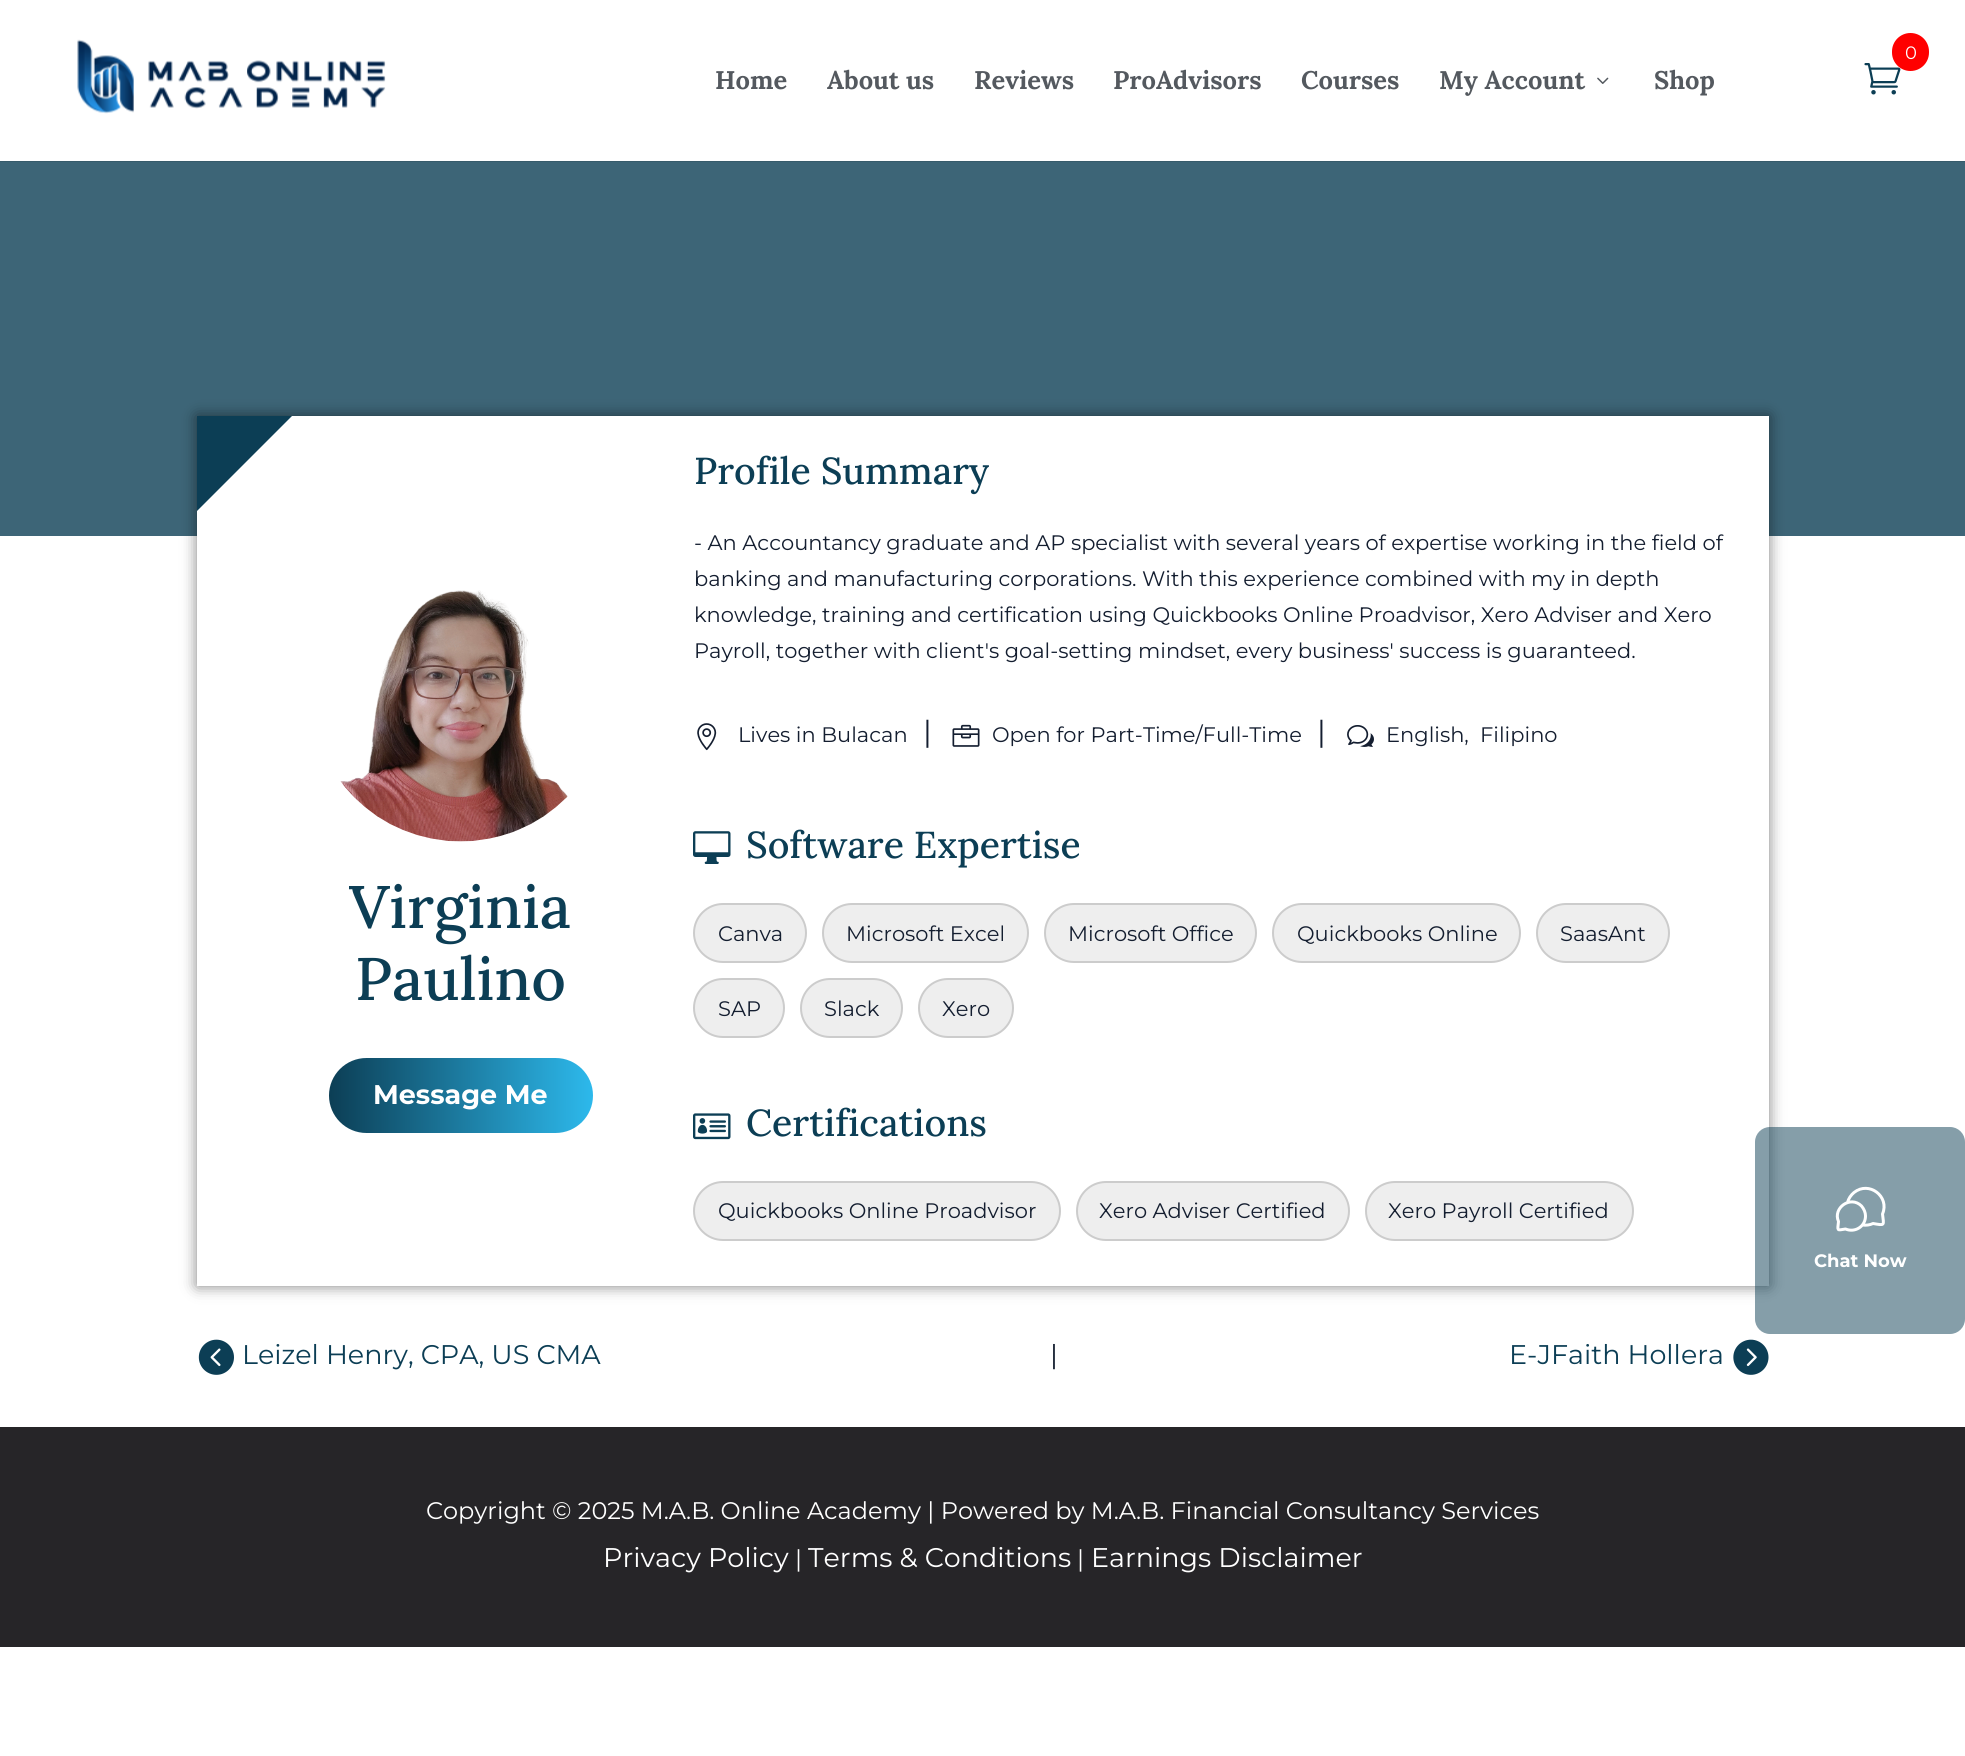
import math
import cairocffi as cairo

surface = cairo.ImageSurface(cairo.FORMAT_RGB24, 1965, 1756)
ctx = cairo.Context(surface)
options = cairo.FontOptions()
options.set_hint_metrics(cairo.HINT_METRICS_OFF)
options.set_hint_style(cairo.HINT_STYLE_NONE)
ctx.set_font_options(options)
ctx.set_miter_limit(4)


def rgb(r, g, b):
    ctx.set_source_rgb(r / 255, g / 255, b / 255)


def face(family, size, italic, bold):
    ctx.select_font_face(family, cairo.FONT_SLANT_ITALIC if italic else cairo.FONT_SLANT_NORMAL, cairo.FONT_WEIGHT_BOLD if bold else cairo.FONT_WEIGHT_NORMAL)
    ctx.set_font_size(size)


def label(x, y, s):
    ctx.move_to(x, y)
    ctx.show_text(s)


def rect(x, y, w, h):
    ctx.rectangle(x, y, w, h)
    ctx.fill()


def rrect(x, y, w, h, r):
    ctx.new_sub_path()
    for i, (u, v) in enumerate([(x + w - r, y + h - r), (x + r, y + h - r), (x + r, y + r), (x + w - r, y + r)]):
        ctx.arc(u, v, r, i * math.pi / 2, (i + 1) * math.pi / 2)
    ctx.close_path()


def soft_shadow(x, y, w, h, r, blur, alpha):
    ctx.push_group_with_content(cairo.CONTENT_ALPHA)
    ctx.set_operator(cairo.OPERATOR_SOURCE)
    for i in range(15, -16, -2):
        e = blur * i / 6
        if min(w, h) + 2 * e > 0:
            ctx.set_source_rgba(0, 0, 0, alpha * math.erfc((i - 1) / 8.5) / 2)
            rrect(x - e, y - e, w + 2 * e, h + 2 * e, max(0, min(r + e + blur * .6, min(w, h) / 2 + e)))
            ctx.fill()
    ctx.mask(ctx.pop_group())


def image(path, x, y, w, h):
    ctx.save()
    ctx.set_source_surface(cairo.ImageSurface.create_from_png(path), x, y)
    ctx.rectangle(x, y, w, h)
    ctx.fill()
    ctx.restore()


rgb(255, 255, 255)
ctx.paint()
image('image0.png', 77, 39, 309, 75)
image('image2.png', 1864, 63, 37, 32)
rgb(255, 0, 0)
rrect(1892, 33, 37, 38, 18.5)
ctx.fill()
face('Montserrat Thin', 18, 0, 0)
rgb(255, 255, 255)
label(1905, 59, '0')
face('Lora', 25.5, 0, 1)
rgb(84, 89, 95)
label(715, 89, 'Home')
label(827, 89, 'About us')
label(974, 89, 'Reviews')
label(1113, 89, 'ProAdvisors')
label(1301, 89, 'Courses')
label(1439, 89, 'My Account')
image('image1.png', 1597, 77, 12, 7)
label(1654, 89, 'Shop')
rgb(61, 101, 119)
rect(0, 162, 1965, 374)
rgb(55, 91, 107)
rect(0, 161, 1965, 1)
rgb(0, 0, 0)
soft_shadow(197, 416, 1572, 870, 0, 7.5, 0.5)
rgb(255, 255, 255)
rect(197, 416, 1572, 870)
ctx.save()
ctx.rectangle(197, 416, 1572, 870)
ctx.clip()
rgb(12, 62, 85)
ctx.new_path()
ctx.move_to(196, 321)
ctx.line_to(292, 416)
ctx.line_to(196, 512)
ctx.line_to(101, 416)
ctx.close_path()
ctx.fill()
ctx.restore()
image('image3.png', 340, 590, 228, 252)
face('Lora Medium', 60, 0, 0)
rgb(12, 62, 85)
label(349, 928, 'Virginia')
label(355, 1000, 'Paulino')
gradient = cairo.LinearGradient(329, 1095, 593, 1095)
gradient.add_color_stop_rgba(0, 0.047, 0.243, 0.333, 1)
gradient.add_color_stop_rgba(1, 0.176, 0.725, 0.925, 1)
ctx.set_source(gradient)
rrect(329, 1058, 264, 75, 37.5)
ctx.fill()
face('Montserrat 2 Thin', 27, 0, 0)
rgb(255, 255, 255)
label(373, 1104, 'Message Me')
face('Lora Medium', 37.5, 0, 0)
rgb(12, 62, 85)
label(694, 484, 'Profile Summary')
face('Montserrat Thin', 21, 0, 0)
rgb(20, 30, 48)
label(694, 550, '- An Accountancy graduate and AP specialist with several years of expertise working in the field of')
label(694, 586, 'banking and manufacturing corporations. With this experience combined with my in depth')
label(694, 622, 'knowledge, training and certification using Quickbooks Online Proadvisor, Xero Adviser and Xero')
label(694, 658, 'Payroll, together with client\'s goal-setting mindset, every business\' success is guaranteed.')
image('image4.png', 697, 723, 20, 28)
label(738, 742, 'Lives in Bulacan')
face('Montserrat Thin', 30, 0, 0)
label(923, 742, '|')
image('image5.png', 952, 724, 28, 23)
face('Montserrat Thin', 21, 0, 0)
label(992, 742, 'Open for Part-Time/Full-Time')
face('Montserrat Thin', 30, 0, 0)
label(1317, 742, '|')
image('image6.png', 1347, 725, 27, 22)
face('Montserrat Thin', 21, 0, 0)
label(1386, 742, 'English,')
label(1480, 742, 'Filipino')
image('image7.png', 693, 831, 38, 33)
face('Lora Medium', 37.5, 0, 0)
rgb(12, 62, 85)
label(746, 858, 'Software Expertise')
rgb(238, 238, 238)
rrect(694, 904, 112, 58, 29)
ctx.fill_preserve()
rgb(204, 204, 204)
ctx.stroke()
face('Montserrat Thin', 21, 0, 0)
rgb(20, 30, 48)
label(718, 941, 'Canva')
rgb(238, 238, 238)
rrect(823, 904, 205, 58, 29)
ctx.fill_preserve()
rgb(204, 204, 204)
ctx.stroke()
rgb(20, 30, 48)
label(846, 941, 'Microsoft Excel')
rgb(238, 238, 238)
rrect(1045, 904, 211, 58, 29)
ctx.fill_preserve()
rgb(204, 204, 204)
ctx.stroke()
rgb(20, 30, 48)
label(1068, 941, 'Microsoft Office')
rgb(238, 238, 238)
rrect(1273, 904, 247, 58, 29)
ctx.fill_preserve()
rgb(204, 204, 204)
ctx.stroke()
rgb(20, 30, 48)
label(1297, 941, 'Quickbooks Online')
rgb(238, 238, 238)
rrect(1537, 904, 132, 58, 29)
ctx.fill_preserve()
rgb(204, 204, 204)
ctx.stroke()
rgb(20, 30, 48)
label(1560, 941, 'SaasAnt')
rgb(238, 238, 238)
rrect(694, 979, 90, 58, 29)
ctx.fill_preserve()
rgb(204, 204, 204)
ctx.stroke()
rgb(20, 30, 48)
label(718, 1016, 'SAP')
rgb(238, 238, 238)
rrect(801, 979, 101, 58, 29)
ctx.fill_preserve()
rgb(204, 204, 204)
ctx.stroke()
rgb(20, 30, 48)
label(824, 1016, 'Slack')
rgb(238, 238, 238)
rrect(919, 979, 94, 58, 29)
ctx.fill_preserve()
rgb(204, 204, 204)
ctx.stroke()
rgb(20, 30, 48)
label(942, 1016, 'Xero')
image('image8.png', 693, 1113, 38, 27)
face('Lora Medium', 37.5, 0, 0)
rgb(12, 62, 85)
label(746, 1136, 'Certifications')
rgb(238, 238, 238)
rrect(694, 1182, 366, 58, 29)
ctx.fill_preserve()
rgb(204, 204, 204)
ctx.stroke()
face('Montserrat Thin', 21, 0, 0)
rgb(20, 30, 48)
label(718, 1218, 'Quickbooks Online Proadvisor')
rgb(238, 238, 238)
rrect(1077, 1182, 272, 58, 29)
ctx.fill_preserve()
rgb(204, 204, 204)
ctx.stroke()
rgb(20, 30, 48)
label(1099, 1218, 'Xero Adviser Certified')
rgb(238, 238, 238)
rrect(1366, 1182, 267, 58, 29)
ctx.fill_preserve()
rgb(204, 204, 204)
ctx.stroke()
rgb(20, 30, 48)
label(1388, 1218, 'Xero Payroll Certified')
image('image9.png', 198, 1339, 36, 36)
face('Montserrat Thin', 27, 0, 0)
rgb(12, 62, 85)
label(242, 1364, 'Leizel Henry, CPA, US CMA')
rgb(20, 30, 48)
label(1050, 1364, '|')
rgb(12, 62, 85)
label(1509, 1364, 'E-JFaith Hollera')
image('image10.png', 1733, 1339, 36, 36)
rgb(38, 37, 40)
rect(0, 1427, 1965, 220)
face('Montserrat Thin', 24, 0, 0)
rgb(255, 255, 255)
label(426, 1519, 'Copyright © 2025 M.A.B. Online Academy | Powered by M.A.B. Financial Consultancy Services')
face('Montserrat Thin', 27, 0, 0)
label(603, 1567, 'Privacy Policy')
face('Montserrat Thin', 24, 0, 0)
label(795, 1567, '|')
face('Montserrat Thin', 27, 0, 0)
label(808, 1567, 'Terms & Conditions')
face('Montserrat Thin', 24, 0, 0)
label(1077, 1567, '|')
face('Montserrat Thin', 27, 0, 0)
label(1091, 1567, 'Earnings Disclaimer')
ctx.set_source_rgba(0.047, 0.243, 0.333, 0.5)
rrect(1755, 1127, 210, 207, 15)
ctx.fill()
ctx.new_path()
ctx.move_to(1862.5, 1225)
ctx.curve_to(1866, 1225.5, 1870, 1225, 1873, 1223.5)
ctx.curve_to(1885, 1225.5, 1884, 1226, 1882.5, 1214)
ctx.curve_to(1890, 1196.5, 1869, 1180.5, 1854, 1192.5)
ctx.curve_to(1851, 1195, 1848.5, 1198.5, 1847.5, 1202.5)
ctx.move_to(1865.5, 1216)
ctx.curve_to(1865.5, 1226.5, 1855, 1233, 1845.5, 1229)
ctx.curve_to(1836.5, 1230.5, 1837.5, 1231, 1838.5, 1221.5)
ctx.curve_to(1832.5, 1208, 1850.5, 1195, 1861.5, 1206)
ctx.curve_to(1864, 1209, 1865.5, 1212.5, 1865.5, 1216)
rgb(255, 255, 255)
ctx.set_line_width(3)
ctx.set_line_cap(cairo.LINE_CAP_ROUND)
ctx.set_line_join(cairo.LINE_JOIN_ROUND)
ctx.stroke()
face('Montserrat 2 Thin', 18, 0, 0)
label(1814, 1267, 'Chat Now')
surface.write_to_png('render.png')
